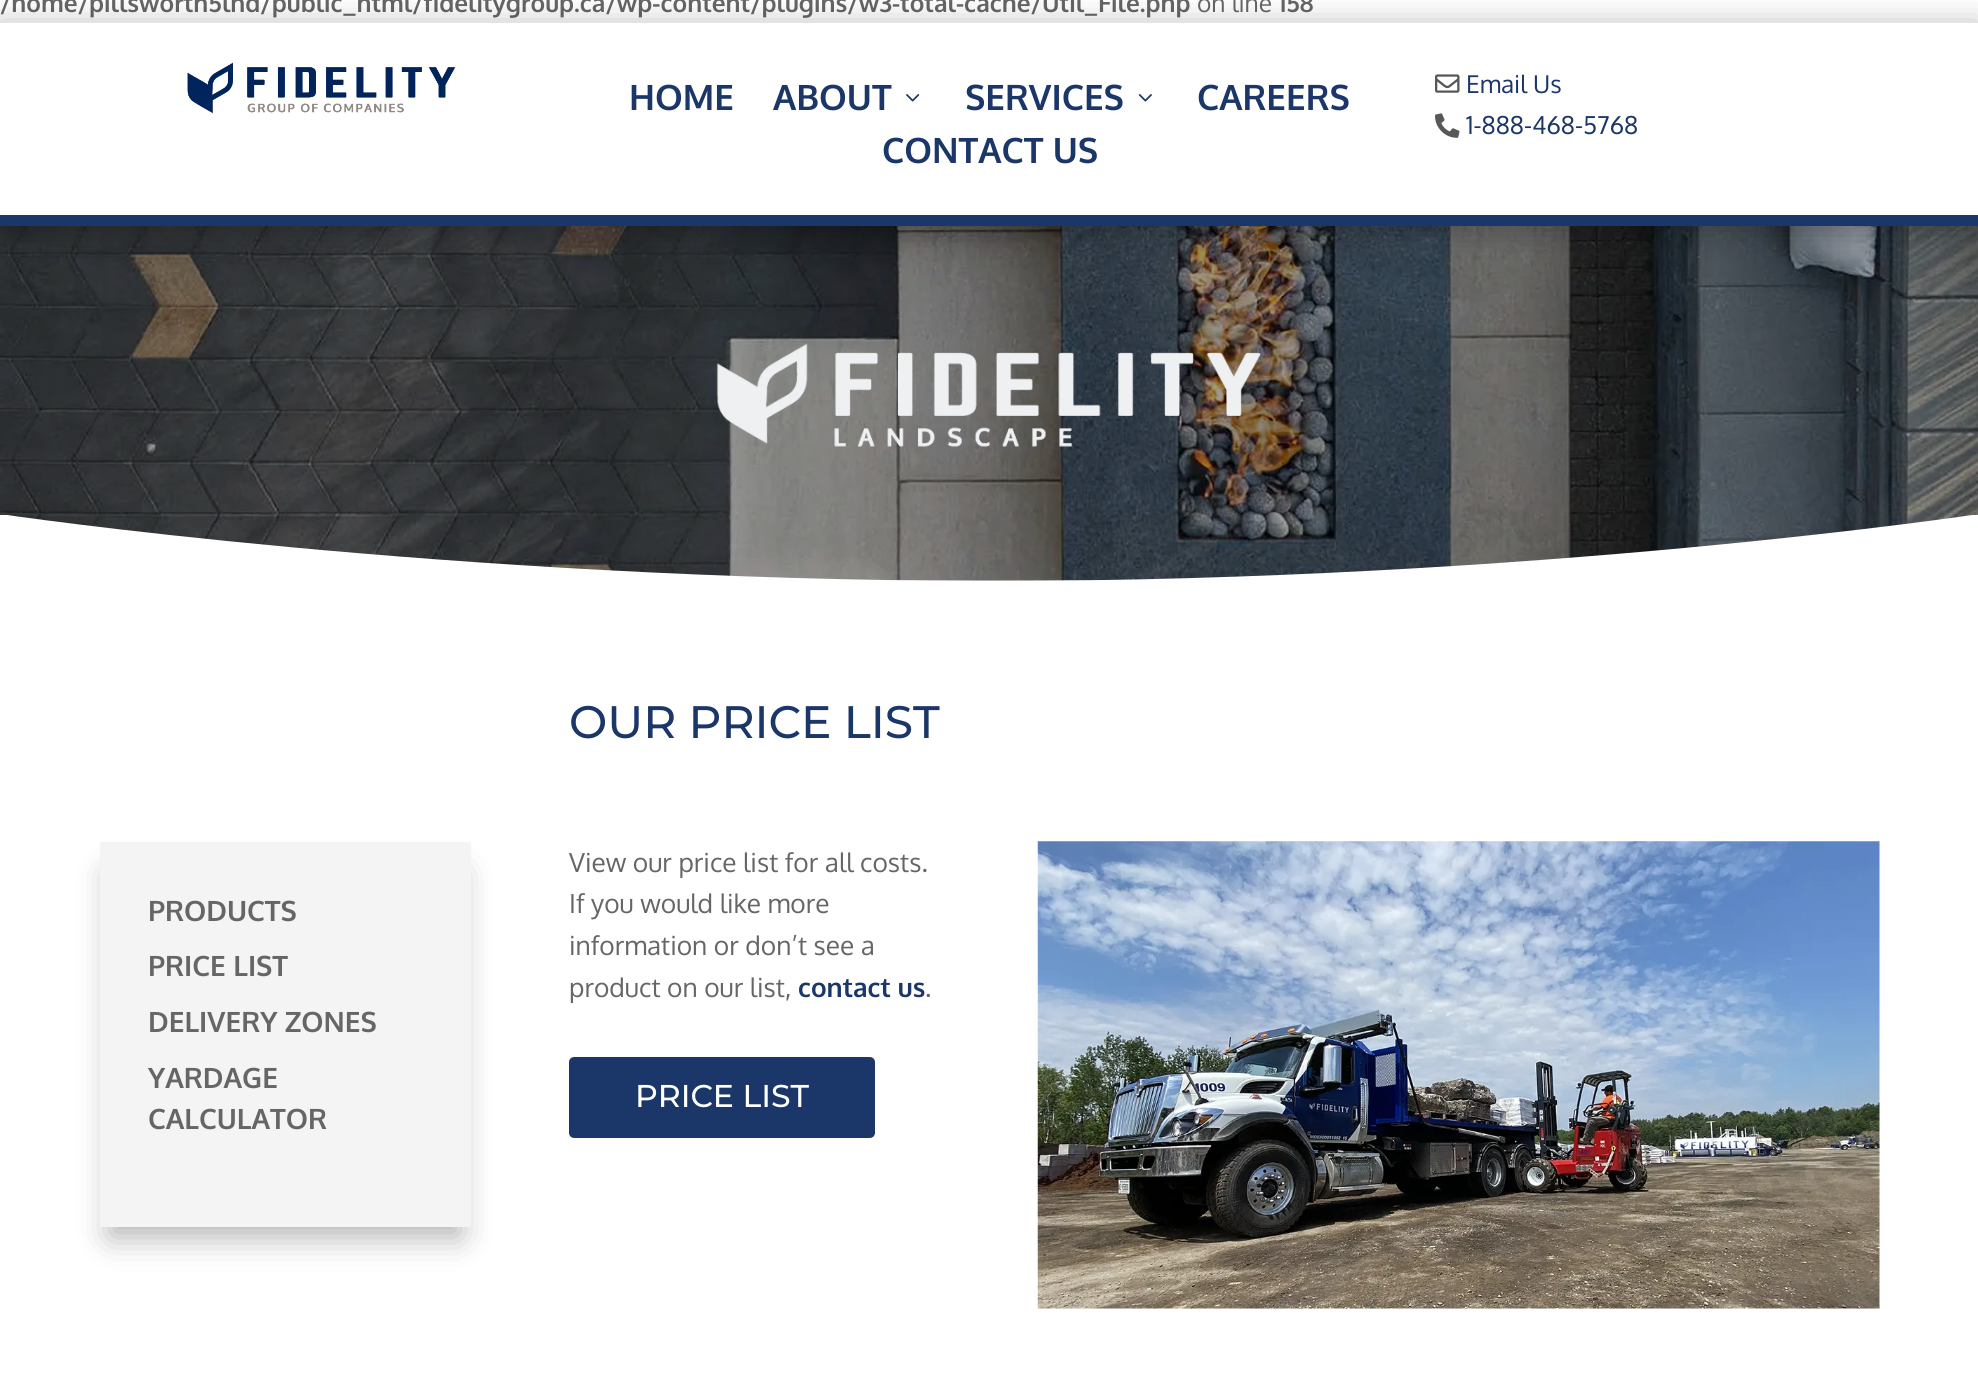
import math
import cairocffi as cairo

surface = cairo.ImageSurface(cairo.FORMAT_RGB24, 1978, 1380)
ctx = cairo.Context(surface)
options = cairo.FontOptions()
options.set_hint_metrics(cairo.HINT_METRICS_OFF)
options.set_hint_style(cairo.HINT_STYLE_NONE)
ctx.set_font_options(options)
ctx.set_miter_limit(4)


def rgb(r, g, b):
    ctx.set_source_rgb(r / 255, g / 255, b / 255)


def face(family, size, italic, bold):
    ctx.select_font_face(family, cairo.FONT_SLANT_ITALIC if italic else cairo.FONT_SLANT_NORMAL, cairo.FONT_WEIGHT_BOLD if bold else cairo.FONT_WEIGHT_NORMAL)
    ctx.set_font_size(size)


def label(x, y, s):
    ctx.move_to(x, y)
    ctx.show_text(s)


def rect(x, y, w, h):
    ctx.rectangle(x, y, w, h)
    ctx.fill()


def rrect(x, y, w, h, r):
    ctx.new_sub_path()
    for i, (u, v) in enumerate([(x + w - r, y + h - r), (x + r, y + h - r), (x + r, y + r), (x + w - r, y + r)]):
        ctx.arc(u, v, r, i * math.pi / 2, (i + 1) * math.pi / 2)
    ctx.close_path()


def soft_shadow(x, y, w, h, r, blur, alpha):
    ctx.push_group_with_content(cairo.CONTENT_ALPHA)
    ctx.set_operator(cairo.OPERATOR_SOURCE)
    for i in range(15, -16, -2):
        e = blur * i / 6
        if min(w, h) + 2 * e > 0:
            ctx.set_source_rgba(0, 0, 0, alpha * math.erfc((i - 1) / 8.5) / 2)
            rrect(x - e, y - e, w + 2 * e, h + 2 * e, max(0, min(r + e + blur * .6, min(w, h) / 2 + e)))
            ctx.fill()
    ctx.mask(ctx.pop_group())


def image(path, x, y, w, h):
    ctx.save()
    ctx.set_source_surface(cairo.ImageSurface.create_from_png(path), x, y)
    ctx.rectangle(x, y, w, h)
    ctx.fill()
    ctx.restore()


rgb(255, 255, 255)
ctx.paint()
face('Oxygen', 24.5, 0, 1)
rgb(102, 102, 102)
label(0, 12, '/home/pillsworth5lnd/public_html/fidelitygroup.ca/wp-content/plugins/w3-total-cache/Util_File.php')
face('Oxygen', 24.5, 0, 0)
label(1197, 12, 'on line')
face('Oxygen', 24.5, 0, 1)
label(1278, 12, '158')
image('image5.png', 0, 226, 1978, 355)
ctx.save()
ctx.set_fill_rule(cairo.FILL_RULE_EVEN_ODD)
ctx.new_path()
ctx.move_to(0, 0)
ctx.line_to(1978, 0)
ctx.line_to(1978, 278)
ctx.line_to(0, 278)
ctx.close_path()
ctx.move_to(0, 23)
ctx.line_to(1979, 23)
ctx.line_to(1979, 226)
ctx.line_to(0, 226)
ctx.close_path()
ctx.clip()
rgb(0, 0, 0)
soft_shadow(0, 26, 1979, 203, 0, 16, 0.3)
ctx.restore()
rgb(27, 54, 104)
rect(0, 215, 1978, 11)
image('image0.png', 187, 62, 268, 52)
face('Oxygen', 35, 0, 1)
label(629, 110, 'HOME')
label(773, 110, 'ABOUT')
image('image1.png', 906, 94, 14, 8)
label(965, 110, 'SERVICES')
image('image2.png', 1138, 94, 14, 8)
label(1197, 110, 'CAREERS')
label(882, 163, 'CONTACT US')
image('image3.png', 1435, 74, 25, 19)
face('Oxygen', 24.5, 0, 0)
label(1466, 93, 'Email Us')
image('image4.png', 1435, 113, 25, 25)
label(1466, 134, '1-888-468-5768')
image('image6.png', 716, 344, 545, 103)
ctx.save()
ctx.rectangle(0, 515, 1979, 66)
ctx.clip()
rgb(255, 255, 255)
ctx.new_path()
ctx.move_to(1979, 581)
ctx.line_to(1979, 514)
ctx.curve_to(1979, 514, 1536, 581, 990, 581)
ctx.curve_to(443, 580, 0, 514, 0, 514)
ctx.line_to(0, 581)
ctx.close_path()
ctx.fill()
ctx.restore()
face('Montserrat Thin', 45.5, 0, 0)
label(569, 738, 'OUR PRICE LIST')
ctx.save()
ctx.set_fill_rule(cairo.FILL_RULE_EVEN_ODD)
ctx.new_path()
ctx.move_to(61, 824)
ctx.line_to(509, 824)
ctx.line_to(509, 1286)
ctx.line_to(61, 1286)
ctx.close_path()
ctx.move_to(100, 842)
ctx.line_to(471, 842)
ctx.line_to(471, 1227)
ctx.line_to(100, 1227)
ctx.close_path()
ctx.clip()
rgb(0, 0, 0)
soft_shadow(110, 873, 350, 364, 0, 16, 0.3)
ctx.restore()
ctx.set_source_rgba(0.612, 0.608, 0.608, 0.11)
rect(100, 842, 371, 385)
face('Oxygen', 28, 0, 1)
rgb(102, 102, 102)
label(148, 921, 'PRODUCTS')
label(148, 976, 'PRICE LIST')
label(148, 1032, 'DELIVERY ZONES')
label(148, 1088, 'YARDAGE')
label(148, 1129, 'CALCULATOR')
face('Oxygen', 26.25, 0, 0)
label(569, 872, 'View our price list for all costs.')
label(569, 913, 'If you would like more')
label(569, 955, 'information or don’t see a')
label(569, 997, 'product on our list,')
face('Oxygen', 26.25, 0, 1)
rgb(27, 54, 104)
label(798, 997, 'contact us')
face('Oxygen', 26.25, 0, 0)
rgb(102, 102, 102)
label(925, 997, '.')
rgb(27, 54, 104)
rrect(571, 1059, 302, 77, 3)
ctx.fill_preserve()
ctx.set_line_width(4)
ctx.stroke()
face('Montserrat Thin', 31.5, 0, 0)
rgb(255, 255, 255)
label(635, 1107, 'PRICE LIST')
image('image7.png', 1037, 841, 843, 468)
surface.write_to_png('render.png')
